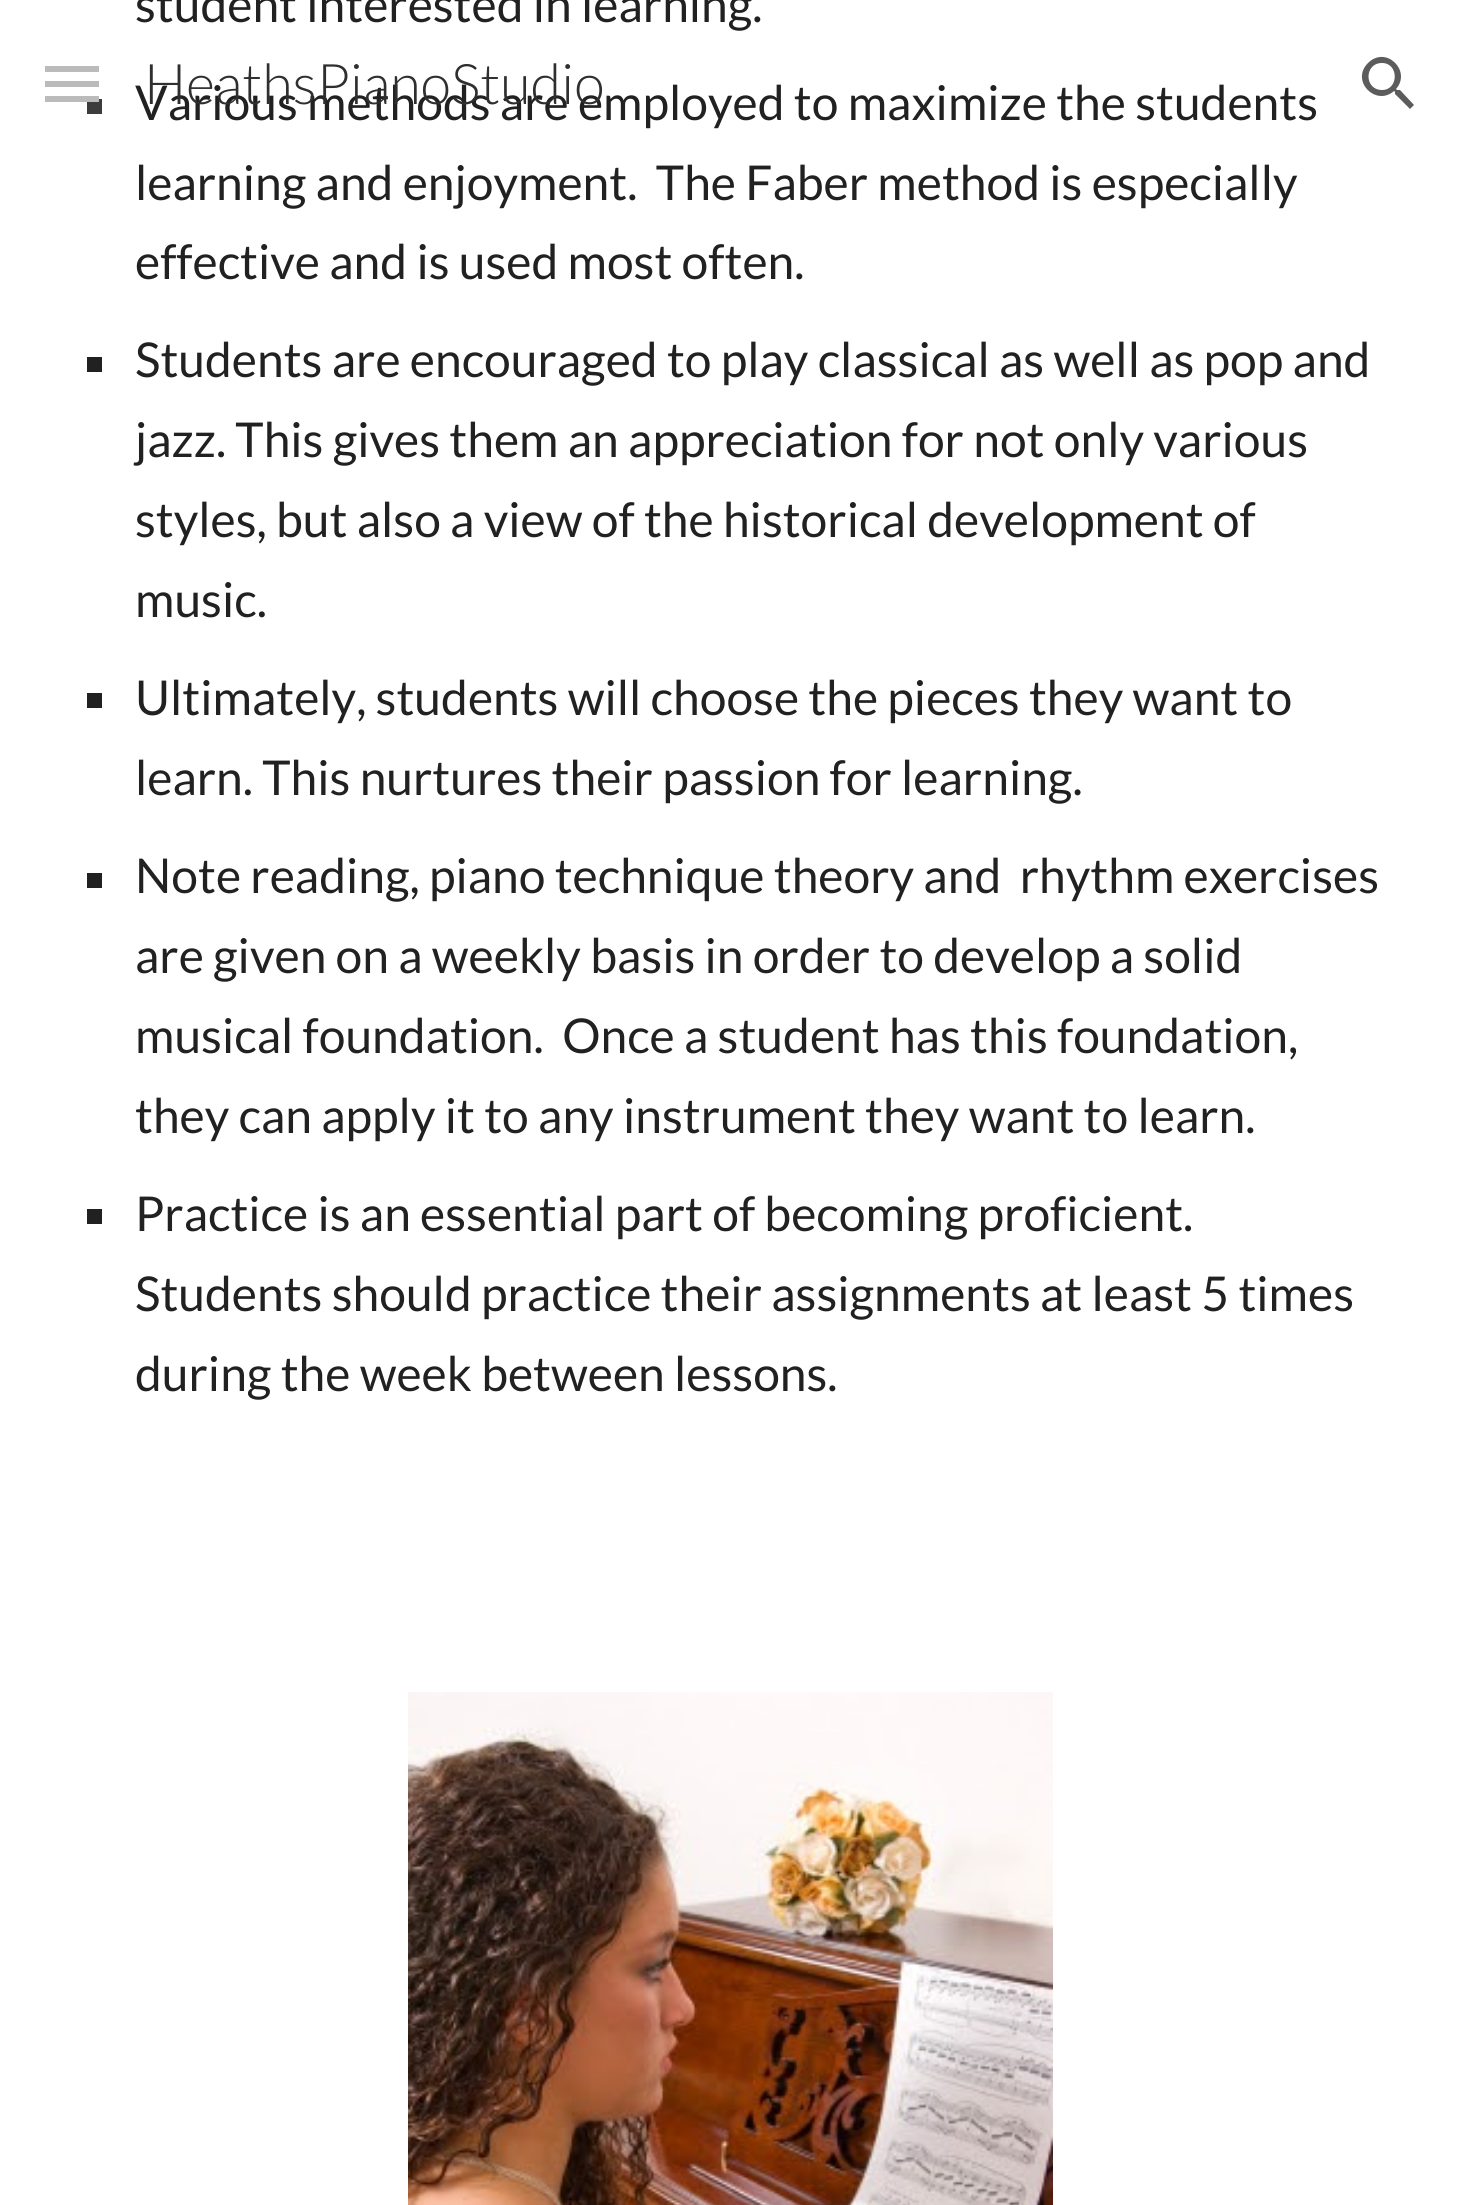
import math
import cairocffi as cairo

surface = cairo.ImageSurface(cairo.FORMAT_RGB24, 1461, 2205)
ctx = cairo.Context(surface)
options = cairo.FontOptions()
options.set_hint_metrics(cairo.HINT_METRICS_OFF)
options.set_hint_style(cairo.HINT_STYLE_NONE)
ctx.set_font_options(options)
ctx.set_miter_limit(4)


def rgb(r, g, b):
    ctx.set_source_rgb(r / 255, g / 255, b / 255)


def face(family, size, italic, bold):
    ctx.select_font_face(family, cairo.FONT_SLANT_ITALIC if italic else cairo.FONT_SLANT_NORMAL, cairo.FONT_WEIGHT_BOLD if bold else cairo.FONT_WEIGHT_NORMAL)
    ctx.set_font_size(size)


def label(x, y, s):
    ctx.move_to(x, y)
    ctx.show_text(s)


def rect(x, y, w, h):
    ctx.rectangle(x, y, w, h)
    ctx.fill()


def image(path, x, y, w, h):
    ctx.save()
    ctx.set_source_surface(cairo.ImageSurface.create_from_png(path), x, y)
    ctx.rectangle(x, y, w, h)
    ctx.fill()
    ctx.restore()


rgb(255, 255, 255)
ctx.paint()
face('Lato', 48, 0, 0)
rgb(33, 33, 33)
label(135, 22, 'student interested in learning.')
rgb(60, 60, 60)
rect(87, 99, 15, 15)
rgb(33, 33, 33)
label(135, 120, 'Various methods are employed to maximize the students')
label(135, 200, 'learning and enjoyment.  The Faber method is especially')
label(135, 279, 'effective and is used most often.')
rect(87, 357, 15, 15)
label(135, 377, 'Students are encouraged to play classical as well as pop and')
label(135, 457, 'jazz. This gives them an appreciation for not only various')
label(135, 537, 'styles, but also a view of the historical development of')
label(135, 617, 'music.')
rect(87, 693, 15, 15)
label(135, 715, 'Ultimately, students will choose the pieces they want to')
label(135, 795, 'learn. This nurtures their passion for learning.')
rect(87, 873, 15, 15)
label(135, 893, 'Note reading, piano technique theory and  rhythm exercises')
label(135, 973, 'are given on a weekly basis in order to develop a solid')
label(135, 1053, 'musical foundation.  Once a student has this foundation,')
label(135, 1133, 'they can apply it to any instrument they want to learn.')
rect(87, 1209, 15, 15)
label(135, 1231, 'Practice is an essential part of becoming proficient.')
label(135, 1311, 'Students should practice their assignments at least 5 times')
label(135, 1391, 'during the week between lessons.')
image('image0.png', 408, 1692, 645, 513)
rgb(187, 187, 187)
rect(45, 66, 54, 6)
rect(45, 81, 54, 6)
rect(45, 96, 54, 6)
face('Lato Light', 56, 0, 0)
rgb(47, 47, 47)
label(144, 104, 'HeathsPianoStudio')
rgb(92, 92, 92)
ctx.new_path()
ctx.move_to(1400, 90)
ctx.line_to(1397, 90)
ctx.line_to(1396, 89)
ctx.curve_to(1412, 71, 1386, 45, 1368, 63)
ctx.curve_to(1350, 81, 1376, 107, 1394, 91)
ctx.line_to(1395, 92)
ctx.line_to(1395, 94)
ctx.line_to(1410, 109)
ctx.line_to(1414, 105)
ctx.close_path()
ctx.move_to(1382, 90)
ctx.curve_to(1364, 90, 1364, 63, 1382, 63)
ctx.curve_to(1399, 63, 1399, 90, 1382, 90)
ctx.close_path()
ctx.fill()
surface.write_to_png('render.png')
